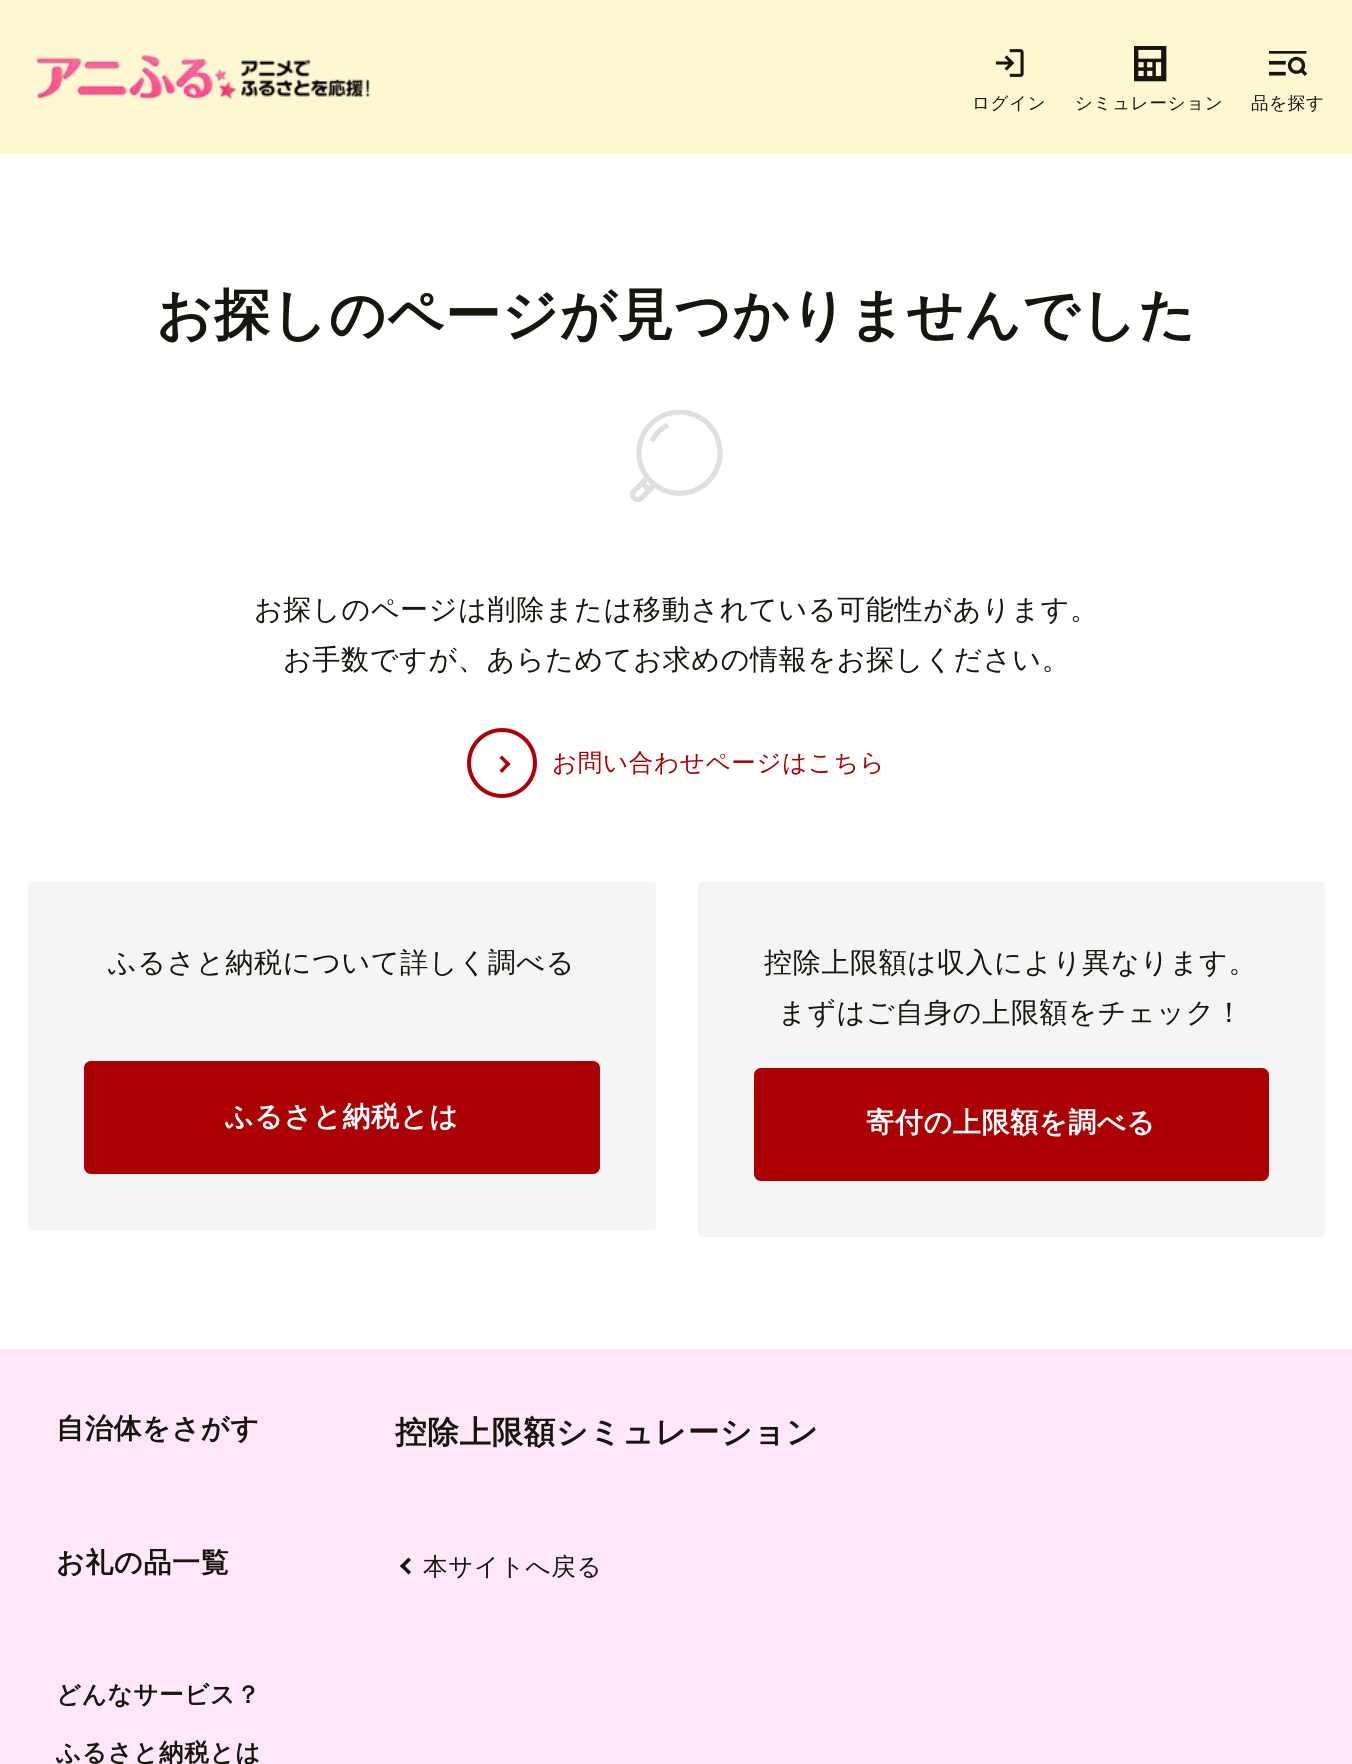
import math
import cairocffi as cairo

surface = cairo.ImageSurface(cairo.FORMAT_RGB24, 1352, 1764)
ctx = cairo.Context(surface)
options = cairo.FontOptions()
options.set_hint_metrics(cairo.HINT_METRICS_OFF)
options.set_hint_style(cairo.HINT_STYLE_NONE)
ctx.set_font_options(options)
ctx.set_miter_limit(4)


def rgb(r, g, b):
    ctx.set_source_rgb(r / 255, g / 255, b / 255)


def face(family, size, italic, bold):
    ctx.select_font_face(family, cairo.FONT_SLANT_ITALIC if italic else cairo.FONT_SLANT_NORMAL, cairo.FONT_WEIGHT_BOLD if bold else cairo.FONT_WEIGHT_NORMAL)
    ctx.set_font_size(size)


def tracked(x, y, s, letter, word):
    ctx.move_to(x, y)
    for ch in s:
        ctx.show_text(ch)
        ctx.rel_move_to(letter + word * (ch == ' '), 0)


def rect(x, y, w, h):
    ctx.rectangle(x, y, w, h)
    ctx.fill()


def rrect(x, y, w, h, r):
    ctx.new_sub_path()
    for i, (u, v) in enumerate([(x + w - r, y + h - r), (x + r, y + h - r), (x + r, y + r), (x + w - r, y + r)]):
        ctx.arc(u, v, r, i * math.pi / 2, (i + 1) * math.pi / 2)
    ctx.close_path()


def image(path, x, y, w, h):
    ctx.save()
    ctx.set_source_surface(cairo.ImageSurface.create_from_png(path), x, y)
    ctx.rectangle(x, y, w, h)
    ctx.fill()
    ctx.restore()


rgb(255, 255, 255)
ctx.paint()
rgb(253, 248, 209)
rect(0, 0, 1352, 154)
image('image0.png', 36, 54, 334, 46)
image('image1.png', 995, 49, 29, 28)
face('WenQuanYi Zen Hei Medium', 17.5, 0, 0)
rgb(22, 22, 14)
tracked(972, 109, 'ログイン', 0.7, 0)
image('image2.png', 1134, 46, 33, 36)
tracked(1075, 109, 'シミュレーション', 0.7, 0)
image('image3.png', 1269, 51, 38, 25)
tracked(1251, 109, '品を探す', 0.7, 0)
face('WenQuanYi Zen Hei', 56, 0, 1)
tracked(156, 334, 'お探しのページが見つかりませんでした', 0.7, 0)
image('image4.png', 630, 410, 93, 92)
face('WenQuanYi Zen Hei Medium', 28, 0, 0)
tracked(254, 619, 'お探しのページは削除または移動されている可能性があります。', 0.7, 0)
tracked(283, 669, 'お手数ですが、あらためてお求めの情報をお探しください。', 0.7, 0)
ctx.new_path()
ctx.arc(502, 763, 33, 0, 2 * math.pi)
rgb(172, 1, 4)
ctx.set_line_width(4)
ctx.stroke()
face('WenQuanYi Zen Hei Medium', 24.5, 0, 0)
tracked(552, 771, 'お問い合わせページはこちら', 0.7, 0)
ctx.new_path()
ctx.move_to(502, 755.5)
ctx.line_to(510.5, 764)
ctx.line_to(508, 766.5)
ctx.line_to(499.5, 758)
ctx.close_path()
ctx.fill()
ctx.new_path()
ctx.move_to(508, 761.5)
ctx.line_to(510.5, 764)
ctx.line_to(502, 773)
ctx.line_to(499.5, 770.5)
ctx.close_path()
ctx.fill()
rgb(245, 245, 245)
rrect(28, 882, 628, 348, 4)
ctx.fill()
face('WenQuanYi Zen Hei Medium', 28, 0, 0)
rgb(22, 22, 14)
tracked(108, 972, 'ふるさと納税について詳しく調べる', 0.7, 0)
rgb(172, 1, 4)
rrect(86, 1063, 512, 109, 5)
ctx.fill_preserve()
ctx.stroke()
face('WenQuanYi Zen Hei', 28, 0, 1)
rgb(255, 255, 255)
tracked(225, 1126, 'ふるさと納税とは', 0.7, 0)
rgb(245, 245, 245)
rrect(698, 882, 627, 355, 4)
ctx.fill()
face('WenQuanYi Zen Hei Medium', 28, 0, 0)
rgb(22, 22, 14)
tracked(764, 972, '控除上限額は収入により異なります。', 0.7, 0)
tracked(778, 1022, 'まずはご自身の上限額をチェック！', 0.7, 0)
rgb(172, 1, 4)
rrect(756, 1070, 511, 109, 5)
ctx.fill_preserve()
ctx.stroke()
face('WenQuanYi Zen Hei', 28, 0, 1)
rgb(255, 255, 255)
tracked(866, 1132, '寄付の上限額を調べる', 0.7, 0)
rgb(255, 231, 249)
rect(0, 1349, 1352, 415)
rgb(22, 22, 14)
tracked(56, 1438, '自治体をさがす', 0.7, 0)
tracked(56, 1572, 'お礼の品一覧', 0.7, 0)
face('WenQuanYi Zen Hei', 24.5, 0, 1)
tracked(56, 1703, 'どんなサービス？', 0.7, 0)
tracked(56, 1761, 'ふるさと納税とは', 0.7, 0)
face('WenQuanYi Zen Hei', 31.5, 0, 1)
tracked(395, 1443, '控除上限額シミュレーション', 0.7, 0)
ctx.new_path()
ctx.move_to(408.5, 1574.5)
ctx.line_to(400, 1566)
ctx.line_to(402.5, 1563.5)
ctx.line_to(411, 1572)
ctx.close_path()
ctx.fill()
ctx.new_path()
ctx.move_to(402.5, 1568.5)
ctx.line_to(400, 1566)
ctx.line_to(408.5, 1557.5)
ctx.line_to(411, 1560)
ctx.close_path()
ctx.fill()
face('WenQuanYi Zen Hei Medium', 24.5, 0, 0)
tracked(423, 1575, '本サイトへ戻る', 0.7, 0)
surface.write_to_png('render.png')
